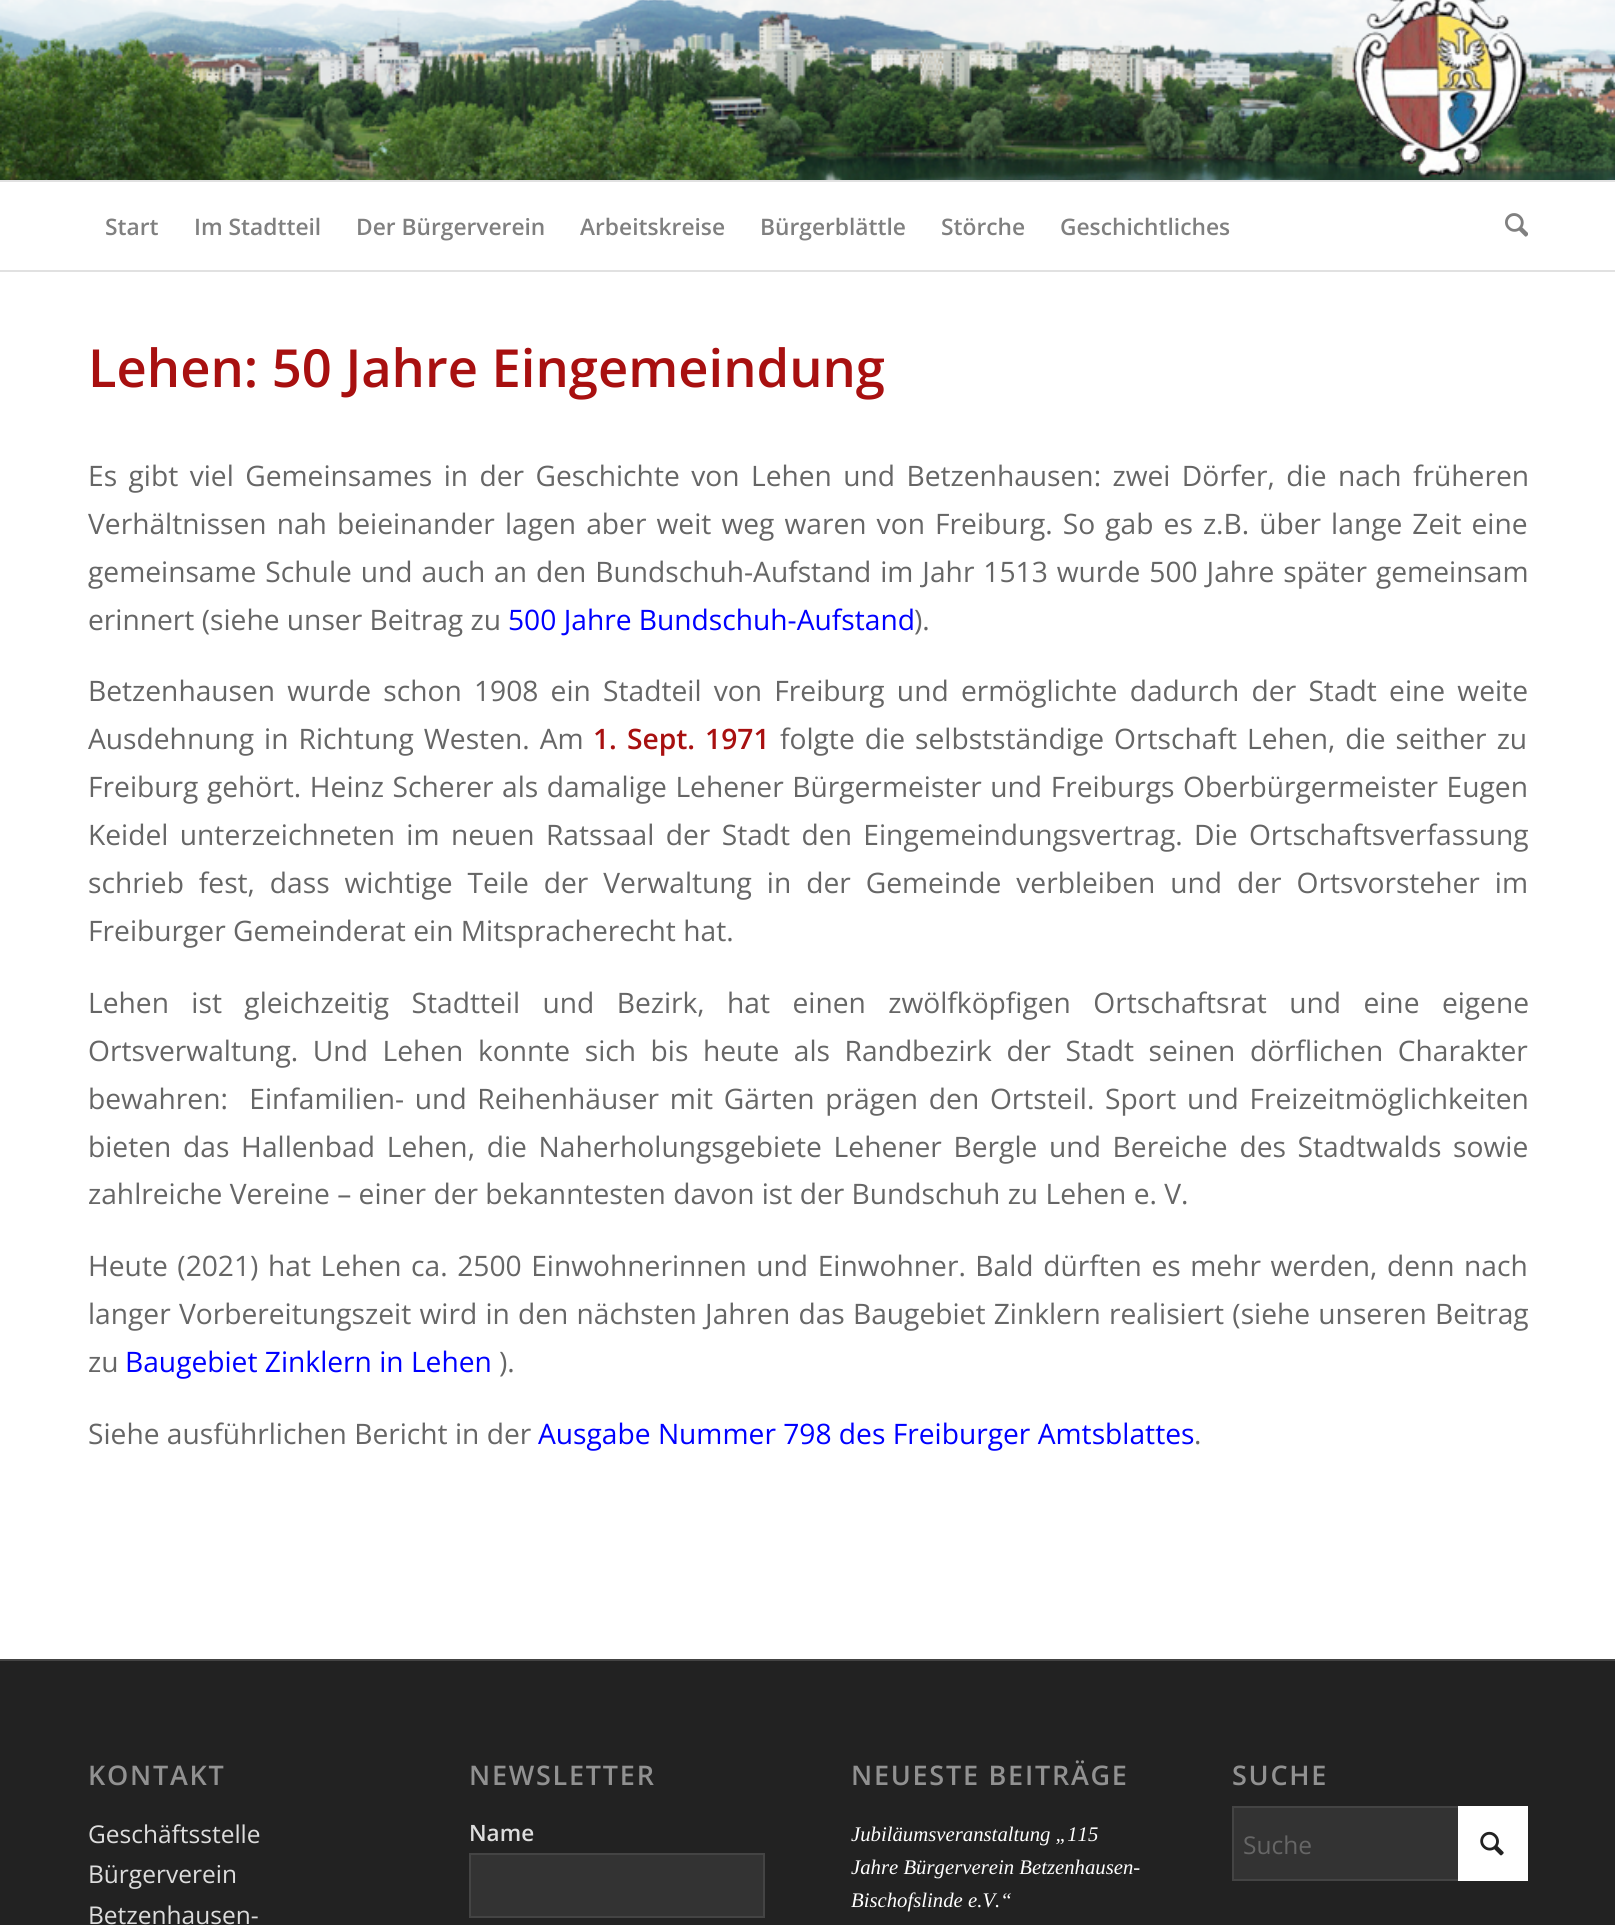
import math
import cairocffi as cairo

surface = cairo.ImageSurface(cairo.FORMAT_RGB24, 1615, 1925)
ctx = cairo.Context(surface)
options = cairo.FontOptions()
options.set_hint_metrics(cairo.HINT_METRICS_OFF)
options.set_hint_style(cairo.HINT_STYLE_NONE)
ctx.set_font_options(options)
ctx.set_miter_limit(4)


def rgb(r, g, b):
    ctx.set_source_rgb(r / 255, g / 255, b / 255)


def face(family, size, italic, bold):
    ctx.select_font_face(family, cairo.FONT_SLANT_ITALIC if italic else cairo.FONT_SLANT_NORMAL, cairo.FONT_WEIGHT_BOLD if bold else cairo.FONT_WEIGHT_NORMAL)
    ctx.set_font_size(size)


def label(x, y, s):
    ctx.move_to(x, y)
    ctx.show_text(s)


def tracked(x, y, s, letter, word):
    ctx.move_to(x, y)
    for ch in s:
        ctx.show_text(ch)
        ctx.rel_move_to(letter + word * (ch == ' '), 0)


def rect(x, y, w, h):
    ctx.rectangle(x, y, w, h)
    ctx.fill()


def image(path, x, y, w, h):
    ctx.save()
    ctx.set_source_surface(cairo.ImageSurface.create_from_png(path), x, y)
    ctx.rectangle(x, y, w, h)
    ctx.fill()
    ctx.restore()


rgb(255, 255, 255)
ctx.paint()
image('image0.png', 0, 0, 1615, 180)
rgb(225, 225, 225)
rect(0, 270, 1615, 2)
image('image1.png', 1352, 0, 175, 178)
rect(0, 180, 1615, 2)
face('Open Sans SemiBold', 22.75, 0, 0)
rgb(128, 128, 128)
label(105, 235, 'Start')
label(194, 235, 'Im Stadtteil')
label(356, 235, 'Der Bürgerverein')
label(580, 235, 'Arbeitskreise')
label(760, 235, 'Bürgerblättle')
label(941, 235, 'Störche')
label(1060, 235, 'Geschichtliches')
image('image2.png', 1505, 213, 23, 24)
face('Open Sans SemiBold', 52.5, 0, 0)
rgb(168, 16, 16)
label(88, 387, 'Lehen: 50 Jahre Eingemeindung')
face('Open Sans', 28.18, 0, 0)
rgb(102, 102, 102)
tracked(88, 486, 'Es gibt viel Gemeinsames in der Geschichte von Lehen und Betzenhausen: zwei Dörfer, die nach früheren', 0, 4.1)
tracked(88, 534, 'Verhältnissen nah beieinander lagen aber weit weg waren von Freiburg. So gab es z.B. über lange Zeit eine', 0, 2.75)
tracked(88, 582, 'gemeinsame Schule und auch an den Bundschuh-Aufstand im Jahr 1513 wurde 500 Jahre später gemeinsam', 0, 1.6)
label(88, 630, 'erinnert (siehe unser Beitrag zu')
rgb(0, 0, 255)
label(508, 630, '500 Jahre Bundschuh-Aufstand')
rgb(102, 102, 102)
label(914, 630, ').')
tracked(88, 701, 'Betzenhausen wurde schon 1908 ein Stadteil von Freiburg und ermöglichte dadurch der Stadt eine weite', 0, 4.9)
tracked(88, 749, 'Ausdehnung in Richtung Westen. Am', 0, 2.75)
face('Open Sans SemiBold', 28.18, 0, 0)
rgb(168, 16, 16)
tracked(593, 749, '1. Sept. 1971', 0, 2.75)
face('Open Sans', 28.18, 0, 0)
rgb(102, 102, 102)
tracked(780, 749, 'folgte die selbstständige Ortschaft Lehen, die seither zu', 0, 2.75)
tracked(88, 797, 'Freiburg gehört. Heinz Scherer als damalige Lehener Bürgermeister und Freiburgs Oberbürgermeister Eugen', 0, 1.25)
tracked(88, 845, 'Keidel unterzeichneten im neuen Ratssaal der Stadt den Eingemeindungsvertrag. Die Ortschaftsverfassung', 0, 4.1)
tracked(88, 893, 'schrieb fest, dass wichtige Teile der Verwaltung in der Gemeinde verbleiben und der Ortsvorsteher im', 0, 7.6)
label(88, 941, 'Freiburger Gemeinderat ein Mitspracherecht hat.')
tracked(88, 1013, 'Lehen ist gleichzeitig Stadtteil und Bezirk, hat einen zwölfköpfigen Ortschaftsrat und eine eigene', 0, 15.1)
tracked(88, 1061, 'Ortsverwaltung. Und Lehen konnte sich bis heute als Randbezirk der Stadt seinen dörflichen Charakter', 0, 7.25)
tracked(88, 1109, 'bewahren:  Einfamilien- und Reihenhäuser mit Gärten prägen den Ortsteil. Sport und Freizeitmöglichkeiten', 0, 3.4)
tracked(88, 1157, 'bieten das Hallenbad Lehen, die Naherholungsgebiete Lehener Bergle und Bereiche des Stadtwalds sowie', 0, 4.4)
label(88, 1204, 'zahlreiche Vereine – einer der bekanntesten davon ist der Bundschuh zu Lehen e. V.')
tracked(88, 1276, 'Heute (2021) hat Lehen ca. 2500 Einwohnerinnen und Einwohner. Bald dürften es mehr werden, denn nach', 0, 2.25)
tracked(88, 1324, 'langer Vorbereitungszeit wird in den nächsten Jahren das Baugebiet Zinklern realisiert (siehe unseren Beitrag', 0, 0.9)
label(88, 1372, 'zu')
rgb(0, 0, 255)
label(125, 1372, 'Baugebiet Zinklern in Lehen')
rgb(102, 102, 102)
label(499, 1372, ').')
label(88, 1444, 'Siehe ausführlichen Bericht in der')
rgb(0, 0, 255)
label(538, 1444, 'Ausgabe Nummer 798 des Freiburger Amtsblattes')
rgb(102, 102, 102)
label(1194, 1444, '.')
rgb(34, 34, 34)
rect(0, 1661, 1615, 264)
rgb(68, 68, 68)
rect(0, 1659, 1615, 2)
face('Open Sans SemiBold', 27, 0, 0)
rgb(145, 145, 145)
tracked(88, 1785, 'KONTAKT', 1.75, 0)
face('Open Sans', 24.5, 0, 0)
rgb(221, 221, 221)
label(88, 1843, 'Geschäftsstelle')
label(88, 1883, 'Bürgerverein')
label(88, 1924, 'Betzenhausen-')
face('Open Sans SemiBold', 27, 0, 0)
rgb(145, 145, 145)
tracked(469, 1785, 'NEWSLETTER', 1.75, 0)
face('Open Sans SemiBold', 22.5, 0, 0)
rgb(221, 221, 221)
label(469, 1841, 'Name')
rgb(51, 51, 51)
ctx.rectangle(470, 1854, 294, 63)
ctx.fill_preserve()
rgb(68, 68, 68)
ctx.stroke()
face('Open Sans SemiBold', 27, 0, 0)
rgb(145, 145, 145)
tracked(851, 1785, 'NEUESTE BEITRÄGE', 1.75, 0)
face('Liberation Serif', 20.75, 1, 0)
rgb(255, 255, 255)
label(851, 1841, 'Jubiläumsveranstaltung „115')
label(851, 1874, 'Jahre Bürgerverein Betzenhausen-')
label(851, 1907, 'Bischofslinde e.V.“')
face('Open Sans SemiBold', 27, 0, 0)
rgb(145, 145, 145)
tracked(1232, 1785, 'SUCHE', 1.75, 0)
rgb(51, 51, 51)
rect(1234, 1808, 224, 71)
ctx.rectangle(1233, 1807, 294, 73)
rgb(68, 68, 68)
ctx.stroke()
rgb(255, 255, 255)
rect(1458, 1806, 70, 75)
face('Open Sans', 24.5, 0, 0)
rgb(102, 102, 102)
label(1243, 1854, 'Suche')
image('image3.png', 1480, 1831, 24, 25)
surface.write_to_png('render.png')
